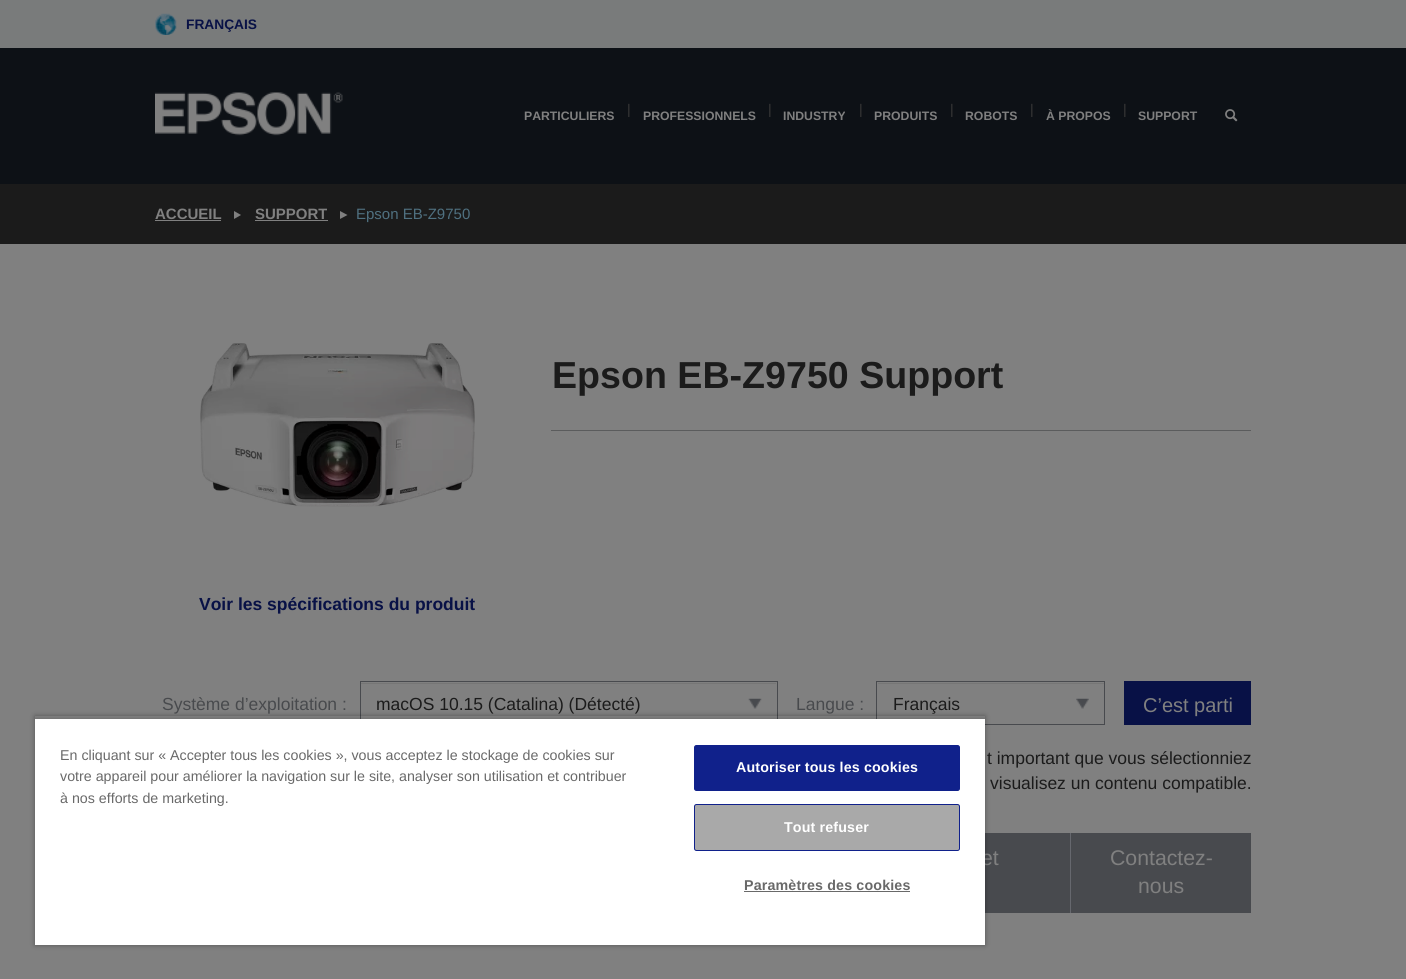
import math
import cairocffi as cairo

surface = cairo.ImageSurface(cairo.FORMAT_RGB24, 1406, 979)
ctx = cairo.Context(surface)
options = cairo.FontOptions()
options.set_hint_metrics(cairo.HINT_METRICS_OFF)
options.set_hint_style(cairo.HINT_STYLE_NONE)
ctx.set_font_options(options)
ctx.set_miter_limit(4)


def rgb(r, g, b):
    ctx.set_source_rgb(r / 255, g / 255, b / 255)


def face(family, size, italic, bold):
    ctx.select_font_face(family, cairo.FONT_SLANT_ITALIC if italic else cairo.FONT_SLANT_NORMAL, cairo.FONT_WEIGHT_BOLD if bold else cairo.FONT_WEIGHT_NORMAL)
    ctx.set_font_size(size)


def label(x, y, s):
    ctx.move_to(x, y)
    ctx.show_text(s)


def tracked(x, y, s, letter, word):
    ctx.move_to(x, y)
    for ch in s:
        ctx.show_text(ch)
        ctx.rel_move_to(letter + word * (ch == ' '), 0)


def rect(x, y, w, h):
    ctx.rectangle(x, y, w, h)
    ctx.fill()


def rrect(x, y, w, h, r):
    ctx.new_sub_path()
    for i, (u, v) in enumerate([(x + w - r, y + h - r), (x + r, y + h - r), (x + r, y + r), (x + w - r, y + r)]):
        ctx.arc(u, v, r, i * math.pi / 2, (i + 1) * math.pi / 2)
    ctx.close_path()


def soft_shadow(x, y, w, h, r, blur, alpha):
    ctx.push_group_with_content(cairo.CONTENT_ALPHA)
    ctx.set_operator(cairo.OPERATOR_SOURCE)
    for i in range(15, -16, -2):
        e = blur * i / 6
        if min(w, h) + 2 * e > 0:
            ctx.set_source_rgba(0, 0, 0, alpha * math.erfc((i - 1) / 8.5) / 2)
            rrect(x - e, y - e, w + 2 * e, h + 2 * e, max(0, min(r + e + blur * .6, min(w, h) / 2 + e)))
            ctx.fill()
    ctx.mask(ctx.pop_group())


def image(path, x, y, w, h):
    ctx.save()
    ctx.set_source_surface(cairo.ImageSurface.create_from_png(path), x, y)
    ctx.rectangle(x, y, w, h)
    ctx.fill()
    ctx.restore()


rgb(128, 128, 128)
ctx.paint()
rgb(121, 123, 123)
rect(0, 0, 1406, 48)
image('image0.png', 155, 13, 22, 22)
face('Liberation Sans', 13.75, 0, 1)
rgb(8, 17, 70)
label(186, 29, 'FRANÇAIS')
rgb(13, 17, 22)
rect(0, 48, 1406, 136)
image('image1.png', 155, 92, 188, 44)
face('Liberation Sans', 12.25, 0, 1)
rgb(128, 128, 128)
label(524, 120, 'PARTICULIERS')
face('Liberation Sans', 14, 0, 0)
rgb(56, 56, 56)
label(627, 114, '|')
face('Liberation Sans', 12.25, 0, 1)
rgb(128, 128, 128)
label(643, 120, 'PROFESSIONNELS')
face('Liberation Sans', 14, 0, 0)
rgb(56, 56, 56)
label(768, 114, '|')
face('Liberation Sans', 12.25, 0, 1)
rgb(128, 128, 128)
label(783, 120, 'INDUSTRY')
face('Liberation Sans', 14, 0, 0)
rgb(56, 56, 56)
label(859, 114, '|')
face('Liberation Sans', 12.25, 0, 1)
rgb(128, 128, 128)
label(874, 120, 'PRODUITS')
face('Liberation Sans', 14, 0, 0)
rgb(56, 56, 56)
label(950, 114, '|')
face('Liberation Sans', 12.25, 0, 1)
rgb(128, 128, 128)
label(965, 120, 'ROBOTS')
face('Liberation Sans', 14, 0, 0)
rgb(56, 56, 56)
label(1030, 114, '|')
face('Liberation Sans', 12.25, 0, 1)
rgb(128, 128, 128)
label(1046, 120, 'À PROPOS')
face('Liberation Sans', 14, 0, 0)
rgb(56, 56, 56)
label(1123, 114, '|')
face('Liberation Sans', 12.25, 0, 1)
rgb(128, 128, 128)
label(1138, 120, 'SUPPORT')
image('image2.png', 1225, 109, 13, 13)
rgb(27, 27, 27)
rect(0, 184, 1406, 60)
face('Liberation Sans', 15, 0, 1)
rgb(128, 128, 128)
label(155, 219, 'ACCUEIL')
rect(155, 220, 66, 1)
ctx.new_path()
ctx.move_to(234, 219)
ctx.line_to(234, 211)
ctx.line_to(241, 215)
ctx.close_path()
ctx.fill()
label(255, 219, 'SUPPORT')
rect(255, 220, 73, 1)
ctx.new_path()
ctx.move_to(340, 219)
ctx.line_to(340, 211)
ctx.line_to(347.5, 215)
ctx.close_path()
ctx.fill()
face('Liberation Sans', 15, 0, 0)
rgb(79, 112, 128)
label(356, 219, 'Epson EB-Z9750')
rgb(91, 92, 93)
rect(551, 430, 700, 1)
face('Liberation Sans', 37.6, 0, 1)
rgb(27, 27, 27)
label(552, 388, 'Epson EB-Z9750 Support')
image('image3.png', 200, 343, 275, 164)
face('Liberation Sans', 17.5, 0, 1)
rgb(8, 17, 70)
label(199, 610, 'Voir les spécifications du produit')
face('Liberation Sans', 17.5, 0, 0)
rgb(72, 74, 77)
label(162, 710, 'Système d’exploitation :')
image('image4.png', 748, 698, 14, 11)
rgb(118, 118, 118)
rect(361, 683, 415, 1)
ctx.rectangle(360.5, 681.5, 417, 43)
rgb(72, 74, 78)
ctx.set_line_width(1)
ctx.stroke()
rgb(27, 27, 27)
label(376, 710, 'macOS 10.15 (Catalina) (Détecté)')
rgb(72, 74, 77)
label(796, 710, 'Langue :')
image('image5.png', 1076, 698, 13, 11)
rgb(118, 118, 118)
rect(878, 683, 226, 1)
ctx.rectangle(876.5, 681.5, 228, 43)
rgb(72, 74, 78)
ctx.stroke()
rgb(27, 27, 27)
label(893, 710, 'Français')
rgb(8, 17, 70)
rect(1124, 681, 127, 44)
face('Liberation Sans', 20, 0, 0)
rgb(128, 128, 128)
label(1143, 712, 'C’est parti')
face('Liberation Sans', 17.5, 0, 0)
rgb(27, 27, 27)
label(987, 764, 't important que vous sélectionniez')
label(990, 789, 'visualisez un contenu compatible.')
rgb(72, 74, 78)
rect(985, 833, 266, 80)
rgb(102, 104, 110)
rect(1070, 833, 1, 80)
face('Liberation Sans', 21.25, 0, 0)
rgb(128, 128, 128)
label(981, 865, 'et')
label(1110, 865, 'Contactez-')
label(1138, 893, 'nous')
ctx.save()
ctx.set_fill_rule(cairo.FILL_RULE_EVEN_ODD)
ctx.new_path()
ctx.move_to(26, 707)
ctx.line_to(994, 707)
ctx.line_to(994, 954)
ctx.line_to(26, 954)
ctx.close_path()
ctx.move_to(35, 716)
ctx.line_to(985, 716)
ctx.line_to(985, 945)
ctx.line_to(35, 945)
ctx.close_path()
ctx.clip()
rgb(0, 0, 0)
soft_shadow(35, 716, 950, 229, 0, 2.5, 0.35)
ctx.restore()
ctx.save()
ctx.rectangle(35, 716, 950, 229)
ctx.clip()
rgb(0, 0, 0)
soft_shadow(35, 719, 950, 226, 0, 2.5, 0.2)
ctx.restore()
rgb(255, 255, 255)
rect(35, 719, 950, 226)
face('Liberation Sans', 14.25, 0, 0)
rgb(105, 105, 105)
label(60, 760, 'En cliquant sur « Accepter tous les cookies », vous acceptez le stockage de cookies sur')
label(60, 781, 'votre appareil pour améliorer la navigation sur le site, analyser son utilisation et contribuer')
label(60, 803, 'à nos efforts de marketing.')
rgb(16, 33, 139)
rrect(694.5, 745.5, 265, 45, 2)
ctx.fill_preserve()
ctx.stroke()
face('Liberation Sans', 14.25, 0, 1)
rgb(255, 255, 255)
tracked(736, 772, 'Autoriser tous les cookies', 0.15, 0)
rgb(169, 169, 169)
rrect(694.5, 804.5, 265, 46, 2)
ctx.fill_preserve()
rgb(16, 33, 139)
ctx.stroke()
rgb(255, 255, 255)
tracked(784, 832, 'Tout refuser', 0.15, 0)
rgb(105, 105, 105)
tracked(744, 890, 'Paramètres des cookies', 0.15, 0)
rect(744, 891, 166, 1)
surface.write_to_png('render.png')
